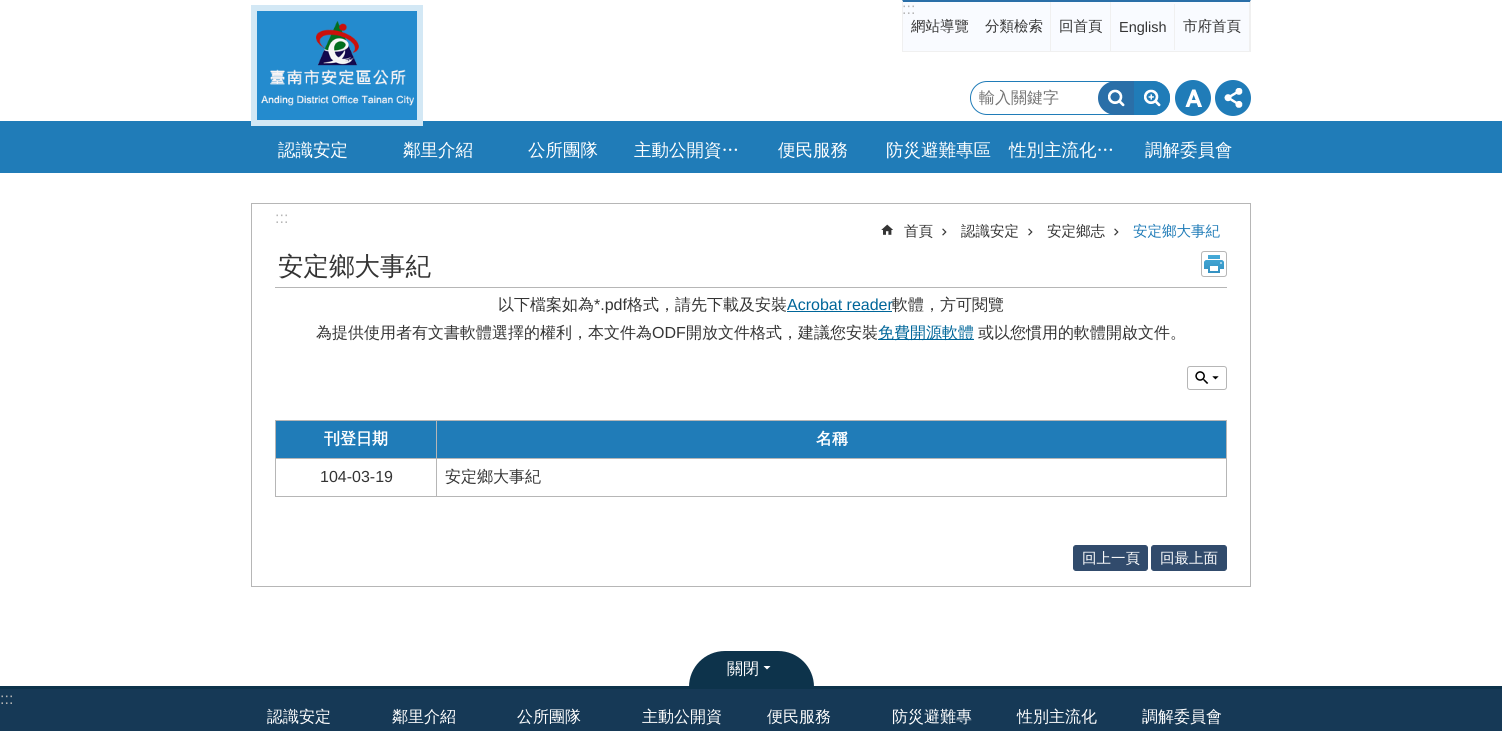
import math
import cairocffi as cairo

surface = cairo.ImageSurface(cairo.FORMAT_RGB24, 1502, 731)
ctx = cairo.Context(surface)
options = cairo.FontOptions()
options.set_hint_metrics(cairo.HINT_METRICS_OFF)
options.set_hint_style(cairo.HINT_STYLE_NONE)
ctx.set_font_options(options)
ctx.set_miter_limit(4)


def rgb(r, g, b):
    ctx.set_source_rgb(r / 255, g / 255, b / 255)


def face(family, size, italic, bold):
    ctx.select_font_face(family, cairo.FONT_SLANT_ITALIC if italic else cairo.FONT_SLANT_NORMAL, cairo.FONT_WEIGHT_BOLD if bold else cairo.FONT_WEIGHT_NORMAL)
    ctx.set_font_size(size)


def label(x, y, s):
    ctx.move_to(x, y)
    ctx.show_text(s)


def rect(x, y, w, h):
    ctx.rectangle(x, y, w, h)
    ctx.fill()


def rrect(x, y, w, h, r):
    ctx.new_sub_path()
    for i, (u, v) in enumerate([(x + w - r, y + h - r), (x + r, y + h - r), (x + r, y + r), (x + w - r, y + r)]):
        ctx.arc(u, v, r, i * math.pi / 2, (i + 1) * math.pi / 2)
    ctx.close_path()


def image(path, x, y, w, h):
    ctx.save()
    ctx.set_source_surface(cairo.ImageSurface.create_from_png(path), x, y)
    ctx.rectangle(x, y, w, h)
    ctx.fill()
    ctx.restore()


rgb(255, 255, 255)
ctx.paint()
rgb(36, 139, 206)
rect(257, 11, 160, 109)
image('image0.png', 261, 21, 153, 85)
rgb(32, 124, 184)
rect(0, 121, 1502, 52)
ctx.rectangle(254, 8, 166, 115)
rgb(211, 232, 245)
ctx.set_line_width(6)
ctx.stroke()
rgb(249, 251, 255)
rect(903, 2, 346, 49)
face('Liberation Sans', 16, 0, 0)
rgb(182, 182, 182)
label(902, 14, ':::')
rgb(42, 111, 168)
ctx.new_path()
ctx.move_to(902, 0)
ctx.line_to(1251, 0)
ctx.line_to(1250, 2)
ctx.line_to(903, 2)
ctx.close_path()
ctx.fill()
rgb(240, 240, 240)
ctx.new_path()
ctx.move_to(1251, 0)
ctx.line_to(1251, 52)
ctx.line_to(1250, 51)
ctx.line_to(1250, 2)
ctx.close_path()
ctx.fill()
rect(902, 51, 349, 1)
ctx.new_path()
ctx.move_to(902, 52)
ctx.line_to(902, 0)
ctx.line_to(903, 2)
ctx.line_to(903, 51)
ctx.close_path()
ctx.fill()
face('WenQuanYi Zen Hei Medium', 14.5, 0, 0)
rgb(52, 52, 52)
label(911, 31, '網站導覽')
rgb(240, 240, 240)
rect(1050, 2, 1, 49)
rgb(52, 52, 52)
label(985, 31, '分類檢索')
rgb(240, 240, 240)
rect(1110, 2, 1, 49)
rgb(52, 52, 52)
label(1059, 31, '回首頁')
rgb(240, 240, 240)
rect(1174, 4, 1, 46)
face('Liberation Sans', 14.5, 0, 0)
rgb(52, 52, 52)
label(1119, 32, 'English')
rgb(240, 240, 240)
rect(1249, 2, 1, 49)
face('WenQuanYi Zen Hei Medium', 14.5, 0, 0)
rgb(52, 52, 52)
label(1183, 31, '市府首頁')
rrect(970.5, 81.5, 199, 33, 16.5)
rgb(32, 124, 184)
ctx.set_line_width(1)
ctx.stroke()
face('WenQuanYi Zen Hei Medium', 16, 0, 0)
rgb(117, 117, 117)
label(979, 103, '輸入關鍵字')
rgb(42, 111, 168)
ctx.new_path()
ctx.move_to(1116, 81)
ctx.line_to(1134, 81)
ctx.line_to(1134, 115)
ctx.line_to(1116, 115)
ctx.curve_to(1106, 115, 1098, 107.5, 1098, 98)
ctx.curve_to(1098, 88.5, 1106, 81, 1116, 81)
ctx.close_path()
ctx.fill()
image('image1.png', 1108, 89, 17, 18)
rgb(32, 124, 184)
ctx.new_path()
ctx.move_to(1134, 81)
ctx.line_to(1152, 81)
ctx.curve_to(1162, 81, 1170, 88.5, 1170, 98)
ctx.curve_to(1170, 107.5, 1162, 115, 1152, 115)
ctx.line_to(1134, 115)
ctx.close_path()
ctx.fill()
image('image2.png', 1144, 89, 17, 18)
ctx.arc(1193, 98, 18, 0, 2 * math.pi)
ctx.fill()
image('image3.png', 1185, 89, 17, 18)
ctx.arc(1233, 98, 18, 0, 2 * math.pi)
ctx.fill()
image('image4.png', 1224, 88, 19, 20)
face('WenQuanYi Zen Hei Medium', 17.5, 0, 0)
rgb(255, 255, 255)
label(278, 156, '認識安定')
label(403, 156, '鄰里介紹')
label(528, 156, '公所團隊')
label(634, 156, '主動公開資…')
label(778, 156, '便民服務')
label(886, 156, '防災避難專區')
label(1009, 156, '性別主流化…')
label(1145, 156, '調解委員會')
ctx.rectangle(251.5, 203.5, 999, 383)
rgb(182, 182, 182)
ctx.stroke()
face('Liberation Sans', 16, 0, 0)
label(275, 223, ':::')
image('image5.png', 881, 224, 12, 11)
face('WenQuanYi Zen Hei Medium', 14.5, 0, 0)
rgb(52, 52, 52)
label(904, 236, '首頁')
image('image6.png', 942, 228, 5, 8)
label(961, 236, '認識安定')
image('image6.png', 1028, 228, 5, 8)
label(1047, 236, '安定鄉志')
image('image6.png', 1114, 228, 5, 8)
rgb(32, 124, 184)
label(1133, 236, '安定鄉大事紀')
rgb(182, 182, 182)
rect(275, 287, 952, 1)
face('WenQuanYi Zen Hei Medium', 25.5, 0, 0)
rgb(52, 52, 52)
label(278, 275, '安定鄉大事紀')
image('image7.png', 1204, 255, 20, 18)
rrect(1201.5, 251.5, 25, 25, 2.5)
rgb(182, 182, 182)
ctx.stroke()
face('WenQuanYi Zen Hei Medium', 16, 0, 0)
rgb(52, 52, 52)
label(498, 310, '以下檔案如為')
face('Liberation Sans', 16, 0, 0)
label(594, 310, '*.pdf')
face('WenQuanYi Zen Hei Medium', 16, 0, 0)
label(627, 310, '格式，請先下載及安裝')
face('Liberation Sans', 16, 0, 0)
rgb(0, 102, 153)
label(787, 310, 'Acrobat reader')
rect(787, 311, 105, 1)
face('WenQuanYi Zen Hei Medium', 16, 0, 0)
rgb(52, 52, 52)
label(892, 310, '軟體，方可閱覽')
label(316, 338, '為提供使用者有文書軟體選擇的權利，本文件為')
face('Liberation Sans', 16, 0, 0)
label(652, 338, 'ODF')
face('WenQuanYi Zen Hei Medium', 16, 0, 0)
label(686, 338, '開放文件格式，建議您安裝')
rgb(0, 102, 153)
rect(878, 339, 96, 1)
label(878, 338, '免費開源軟體')
rgb(52, 52, 52)
label(978, 338, '或以您慣用的軟體開啟文件。')
image('image8.png', 1195, 371, 24, 13)
rrect(1187.5, 366.5, 39, 23, 2.5)
rgb(182, 182, 182)
ctx.stroke()
rgb(32, 124, 184)
rect(276, 421, 160, 37)
rgb(182, 182, 182)
rect(436, 420, 791, 1)
rect(436, 458, 791, 1)
rect(1226, 458, 1, 39)
rect(436, 496, 791, 1)
rect(436, 458, 1, 39)
rect(275, 458, 162, 1)
rect(436, 420, 1, 39)
rect(275, 420, 162, 1)
rect(275, 496, 162, 1)
rect(275, 458, 1, 39)
rect(275, 420, 1, 39)
face('WenQuanYi Zen Hei', 16, 0, 1)
rgb(255, 255, 255)
label(324, 444, '刊登日期')
rgb(32, 124, 184)
rect(437, 421, 789, 37)
rgb(182, 182, 182)
rect(1226, 420, 1, 39)
rgb(255, 255, 255)
label(816, 444, '名稱')
face('Liberation Sans', 16, 0, 0)
rgb(52, 52, 52)
label(320, 482, '104-03-19')
face('WenQuanYi Zen Hei Medium', 16, 0, 0)
label(445, 482, '安定鄉大事紀')
rgb(49, 75, 108)
rrect(1073.5, 545.5, 74, 25, 2.5)
ctx.fill_preserve()
ctx.stroke()
face('WenQuanYi Zen Hei Medium', 14.5, 0, 0)
rgb(255, 255, 255)
label(1082, 563, '回上一頁')
rgb(49, 75, 108)
rrect(1151.5, 545.5, 75, 25, 2.5)
ctx.fill_preserve()
ctx.stroke()
rgb(255, 255, 255)
label(1160, 563, '回最上面')
rgb(22, 57, 86)
rect(0, 689, 1502, 42)
rgb(13, 51, 75)
rect(0, 686, 1502, 3)
ctx.new_path()
ctx.move_to(725, 651)
ctx.line_to(778, 651)
ctx.curve_to(798, 651, 814, 667, 814, 687)
ctx.line_to(689, 687)
ctx.curve_to(689, 667, 705, 651, 725, 651)
ctx.close_path()
ctx.fill()
face('WenQuanYi Zen Hei Medium', 16, 0, 0)
rgb(255, 255, 255)
label(727, 674, '關閉')
ctx.new_path()
ctx.move_to(763.5, 666)
ctx.line_to(770.5, 666)
ctx.line_to(767, 669.5)
ctx.close_path()
ctx.fill()
face('Liberation Sans', 16, 0, 0)
rgb(182, 182, 182)
label(0, 704, ':::')
face('WenQuanYi Zen Hei Medium', 16, 0, 0)
rgb(255, 255, 255)
label(267, 722, '認識安定')
label(392, 722, '鄰里介紹')
label(517, 722, '公所團隊')
label(642, 722, '主動公開資')
label(767, 722, '便民服務')
label(892, 722, '防災避難專')
label(1017, 722, '性別主流化')
label(1142, 722, '調解委員會')
surface.write_to_png('render.png')
